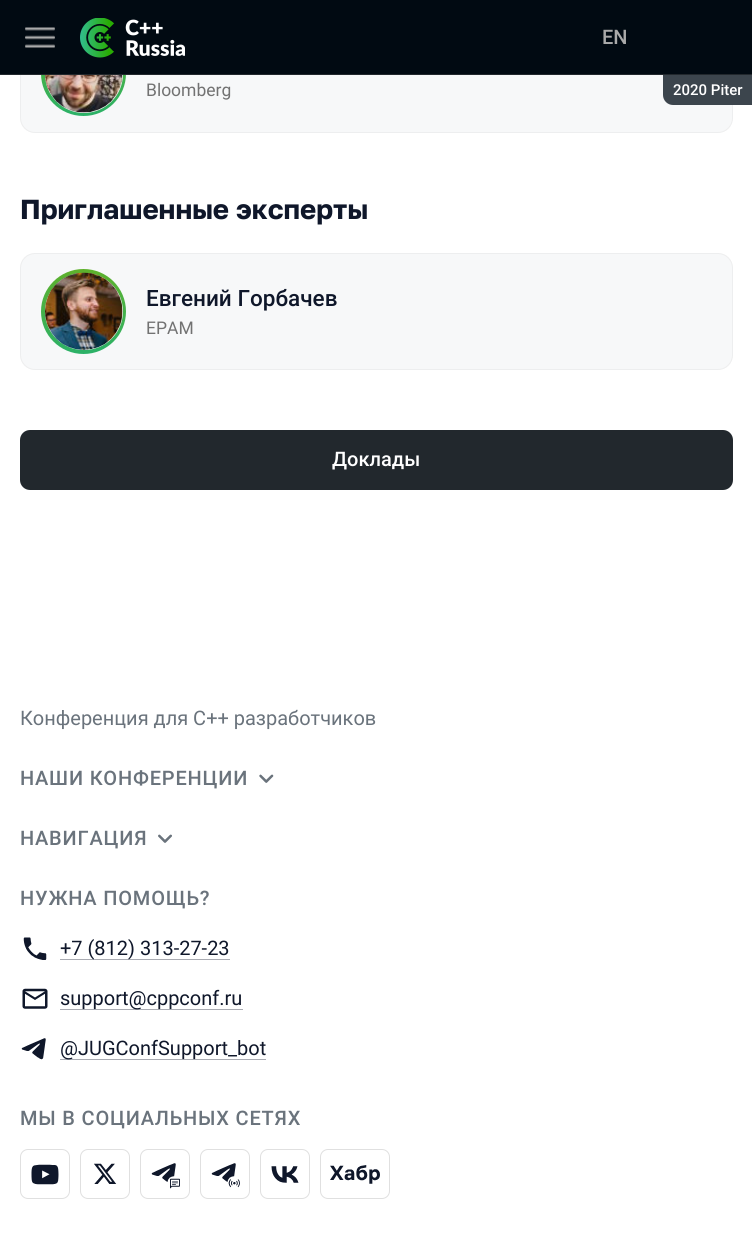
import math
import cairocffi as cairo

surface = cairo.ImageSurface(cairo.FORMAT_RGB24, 752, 1235)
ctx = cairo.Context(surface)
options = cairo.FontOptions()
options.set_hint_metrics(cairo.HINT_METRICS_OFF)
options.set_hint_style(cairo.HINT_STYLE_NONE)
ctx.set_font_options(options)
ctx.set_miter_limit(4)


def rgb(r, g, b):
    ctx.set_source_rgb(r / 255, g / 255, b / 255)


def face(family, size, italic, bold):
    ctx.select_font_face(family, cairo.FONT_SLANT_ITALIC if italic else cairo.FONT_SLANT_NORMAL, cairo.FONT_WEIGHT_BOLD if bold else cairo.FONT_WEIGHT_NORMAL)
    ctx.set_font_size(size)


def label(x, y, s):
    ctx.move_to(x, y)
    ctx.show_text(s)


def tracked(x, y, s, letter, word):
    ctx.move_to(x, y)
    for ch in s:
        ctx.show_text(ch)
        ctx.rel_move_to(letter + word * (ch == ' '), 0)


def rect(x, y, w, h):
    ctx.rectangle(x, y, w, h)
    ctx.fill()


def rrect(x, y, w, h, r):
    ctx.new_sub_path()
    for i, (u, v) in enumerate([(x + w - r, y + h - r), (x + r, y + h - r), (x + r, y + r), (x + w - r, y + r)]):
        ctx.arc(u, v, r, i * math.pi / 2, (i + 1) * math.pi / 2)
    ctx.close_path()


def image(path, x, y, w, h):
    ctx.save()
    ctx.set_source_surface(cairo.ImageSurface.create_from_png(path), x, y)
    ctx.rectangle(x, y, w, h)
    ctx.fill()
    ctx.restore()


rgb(255, 255, 255)
ctx.paint()
rgb(247, 248, 249)
rrect(20, 15, 713, 118, 15)
ctx.fill()
rrect(20.5, 15.5, 712, 117, 14.5)
ctx.set_source_rgba(0.827, 0.827, 0.827, 0.28)
ctx.set_line_width(1)
ctx.stroke()
gradient = cairo.LinearGradient(84, 31, 84, 116)
gradient.add_color_stop_rgba(0, 0.369, 0.694, 0.169, 1)
gradient.add_color_stop_rgba(1, 0.169, 0.694, 0.408, 1)
ctx.set_source(gradient)
ctx.arc(83.5, 73.5, 42.5, 0, 2 * math.pi)
ctx.fill()
rgb(241, 241, 241)
ctx.arc(84, 74, 39, 0, 2 * math.pi)
ctx.fill()
rgb(1, 10, 18)
rect(0, 0, 752, 74)
face('Roboto Medium', 20, 0, 0)
rgb(170, 170, 170)
label(602, 44, 'EN')
image('image0.png', 25, 27, 30, 21)
image('image1.png', 80, 18, 105, 40)
rgb(60, 69, 77)
ctx.new_path()
ctx.move_to(663, 75)
ctx.line_to(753, 75)
ctx.line_to(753, 105)
ctx.line_to(673, 105)
ctx.curve_to(667.5, 105, 663, 100.5, 663, 95)
ctx.close_path()
ctx.fill()
face('Roboto Medium', 15, 0, 0)
rgb(255, 255, 255)
label(673, 95, '2020 Piter')
rgb(34, 40, 45)
rect(0, 74, 752, 1)
image('image2.png', 45, 75, 78, 38)
face('Roboto', 17.5, 0, 0)
rgb(114, 114, 114)
label(146, 96, 'Bloomberg')
face('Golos', 27.5, 0, 1)
rgb(15, 23, 42)
label(20, 219, 'Приглашенные эксперты')
rgb(247, 248, 249)
rrect(20, 253, 713, 117, 15)
ctx.fill()
rrect(20.5, 253.5, 712, 116, 14.5)
ctx.set_source_rgba(0.827, 0.827, 0.827, 0.28)
ctx.stroke()
gradient = cairo.LinearGradient(84, 269, 84, 354)
gradient.add_color_stop_rgba(0, 0.369, 0.694, 0.169, 1)
gradient.add_color_stop_rgba(1, 0.169, 0.694, 0.408, 1)
ctx.set_source(gradient)
ctx.arc(83.5, 311.5, 42.5, 0, 2 * math.pi)
ctx.fill()
rgb(241, 241, 241)
rrect(45, 273, 78, 77, 38.5)
ctx.fill()
image('image3.png', 45, 272, 78, 78)
face('Roboto Medium', 22.5, 0, 0)
rgb(15, 23, 42)
label(146, 306, 'Евгений Горбачев')
face('Roboto', 17.5, 0, 0)
rgb(114, 114, 114)
label(146, 334, 'EPAM')
rgb(34, 40, 45)
rrect(20, 430, 713, 60, 10)
ctx.fill()
face('Roboto Medium', 20, 0, 0)
rgb(255, 255, 255)
label(332, 466, 'Доклады')
face('Roboto', 20, 0, 0)
rgb(106, 115, 124)
label(20, 725, 'Конференция для C++ разработчиков')
face('Roboto Medium', 20, 0, 0)
tracked(20, 785, 'НАШИ КОНФЕРЕНЦИИ', 0.8, 0)
image('image4.png', 259, 774, 15, 9)
tracked(20, 845, 'НАВИГАЦИЯ', 0.8, 0)
image('image5.png', 158, 834, 14, 9)
tracked(20, 905, 'НУЖНА ПОМОЩЬ?', 0.8, 0)
image('image6.png', 23, 937, 24, 23)
rgb(169, 171, 178)
rect(60, 959, 170, 1)
face('Roboto', 20, 0, 0)
rgb(15, 23, 42)
label(60, 955, '+7 (812) 313-27-23')
image('image7.png', 22, 988, 26, 21)
rgb(169, 171, 178)
rect(60, 1009, 183, 1)
rgb(15, 23, 42)
label(60, 1005, 'support@cppconf.ru')
image('image8.png', 21, 1038, 25, 22)
rgb(169, 171, 178)
rect(60, 1059, 206, 1)
rgb(15, 23, 42)
label(60, 1055, '@JUGConfSupport_bot')
face('Roboto Medium', 20, 0, 0)
rgb(106, 115, 124)
tracked(20, 1125, 'МЫ В СОЦИАЛЬНЫХ СЕТЯХ', 0.8, 0)
rrect(20.5, 1149.5, 49, 49, 7.5)
rgb(224, 224, 224)
ctx.stroke()
image('image9.png', 31, 1164, 28, 21)
rrect(80.5, 1149.5, 49, 49, 7.5)
ctx.stroke()
image('image10.png', 94, 1163, 23, 21)
rrect(140.5, 1149.5, 49, 49, 7.5)
ctx.stroke()
image('image11.png', 151, 1163, 29, 26)
rrect(200.5, 1149.5, 49, 49, 7.5)
ctx.stroke()
image('image12.png', 211, 1163, 29, 25)
rrect(260.5, 1149.5, 49, 49, 7.5)
ctx.stroke()
image('image13.png', 271, 1166, 28, 17)
rrect(320.5, 1149.5, 69, 49, 7.5)
ctx.stroke()
image('image14.png', 330, 1165, 50, 19)
surface.write_to_png('render.png')
